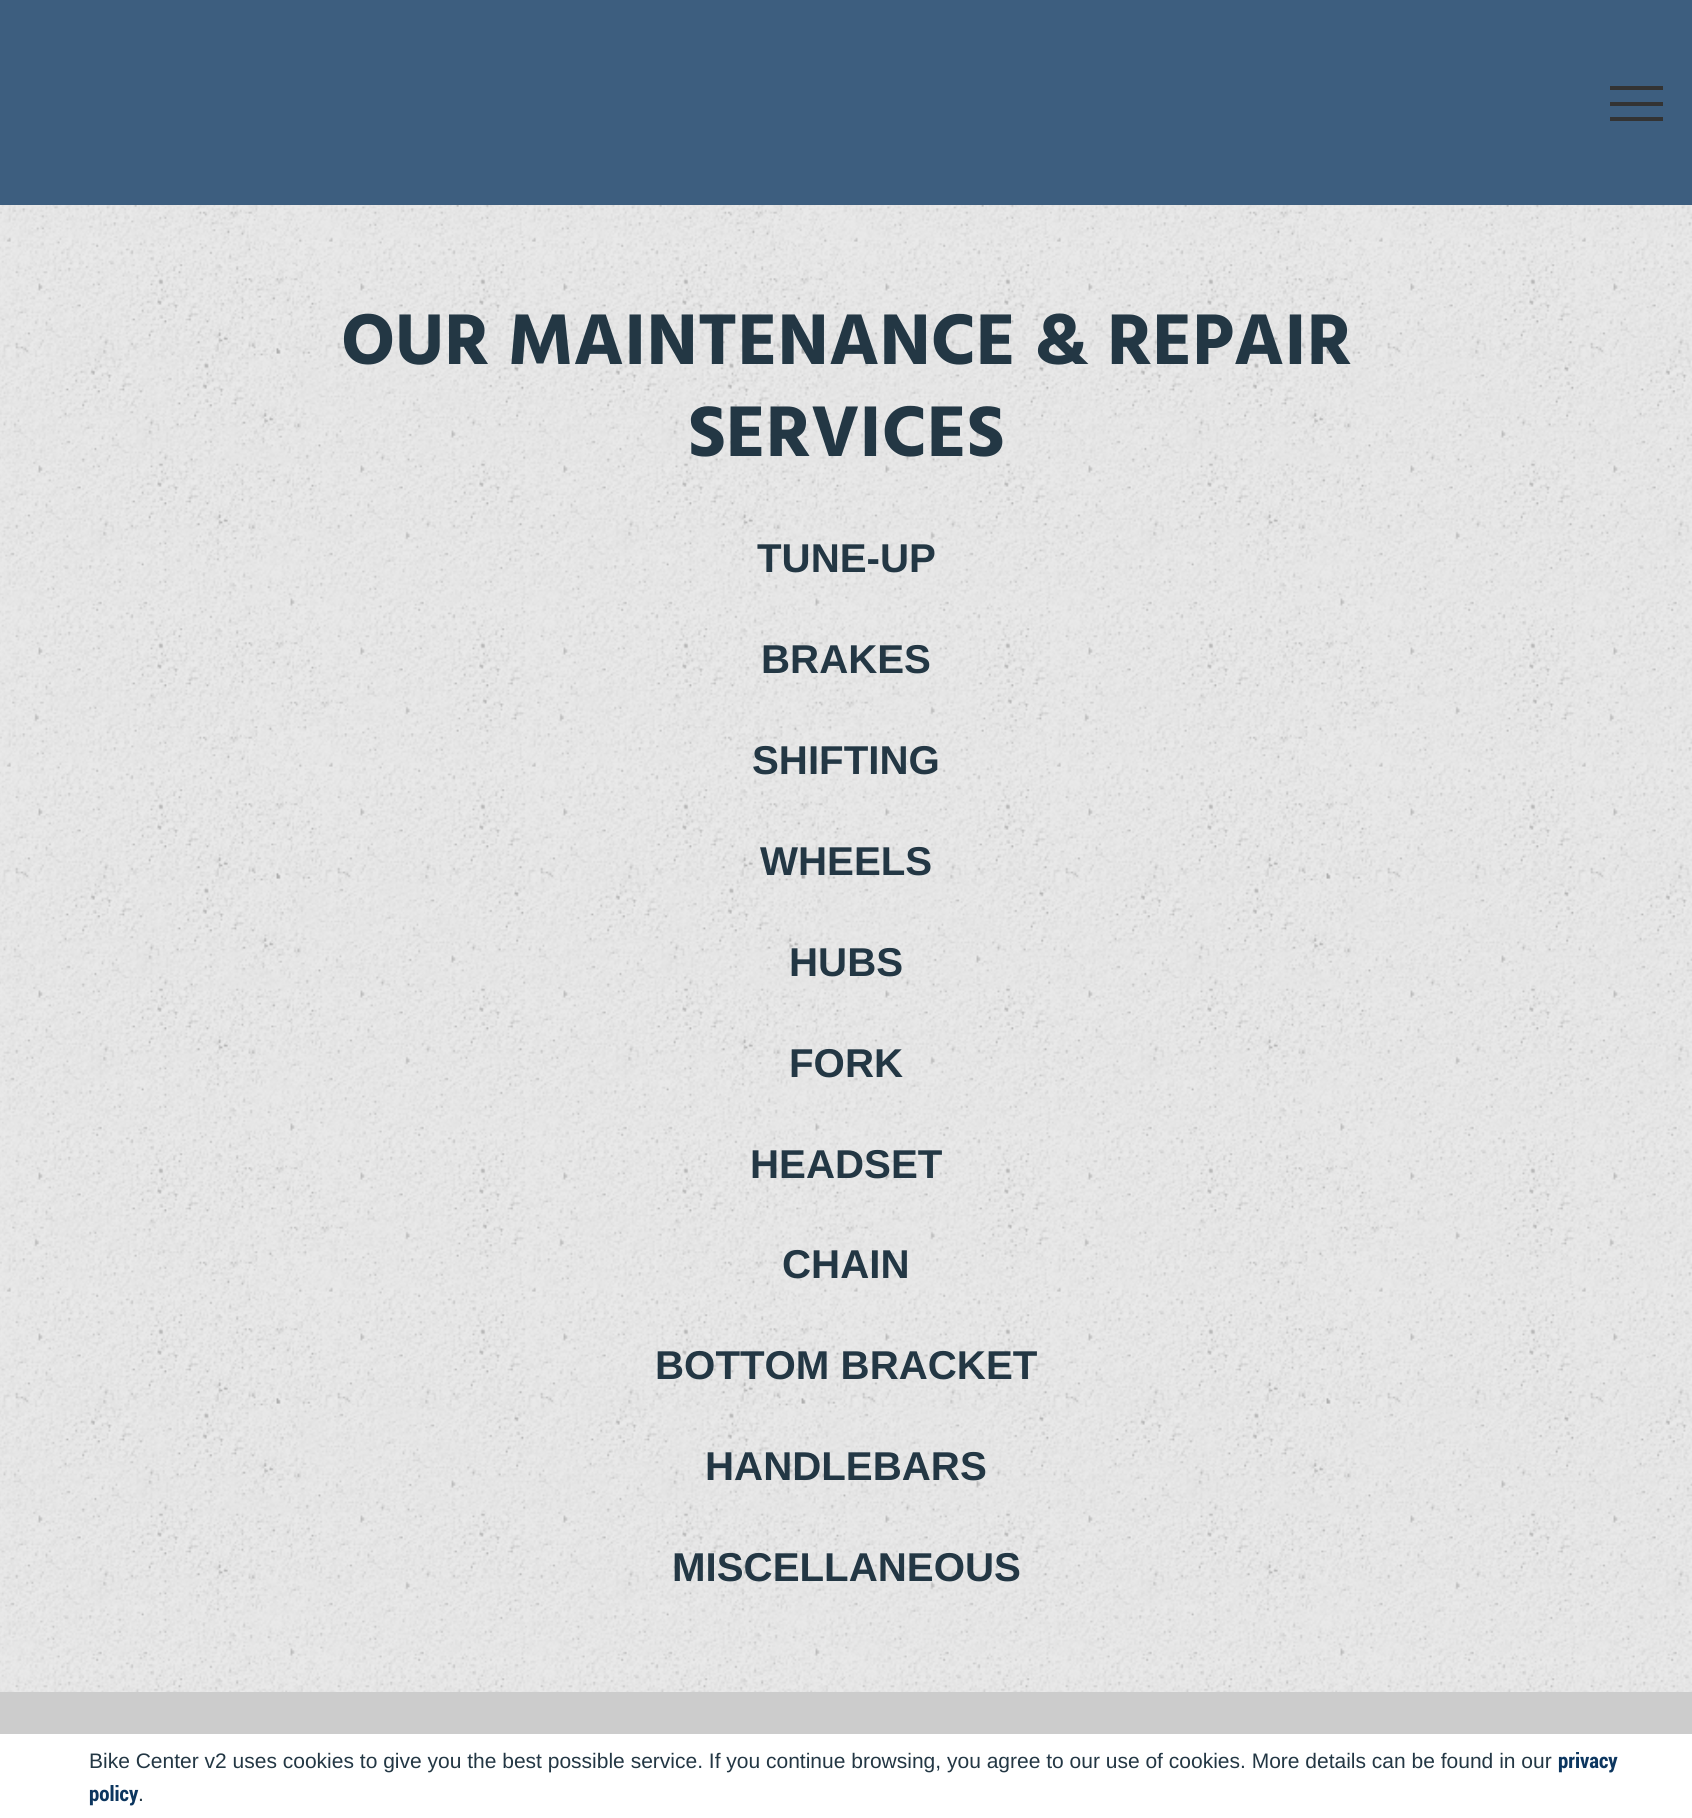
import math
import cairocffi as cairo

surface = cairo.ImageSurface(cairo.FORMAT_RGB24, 1692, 1818)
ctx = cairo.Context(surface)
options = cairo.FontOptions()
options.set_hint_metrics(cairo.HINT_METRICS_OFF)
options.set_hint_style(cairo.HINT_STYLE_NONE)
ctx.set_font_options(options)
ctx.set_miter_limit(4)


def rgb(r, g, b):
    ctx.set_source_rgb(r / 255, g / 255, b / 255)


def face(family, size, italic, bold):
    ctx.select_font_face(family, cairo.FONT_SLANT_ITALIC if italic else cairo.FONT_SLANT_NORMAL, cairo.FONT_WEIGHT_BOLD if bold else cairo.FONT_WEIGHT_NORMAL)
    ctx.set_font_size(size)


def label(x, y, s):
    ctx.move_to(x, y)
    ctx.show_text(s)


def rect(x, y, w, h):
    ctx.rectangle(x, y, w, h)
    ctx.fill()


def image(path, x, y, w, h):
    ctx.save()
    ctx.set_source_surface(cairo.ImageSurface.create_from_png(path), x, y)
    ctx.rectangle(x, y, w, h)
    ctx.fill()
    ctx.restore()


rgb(255, 255, 255)
ctx.paint()
rgb(61, 94, 127)
rect(0, 0, 1692, 205)
rgb(51, 51, 51)
rect(1610, 86, 53, 4)
rect(1610, 102, 53, 4)
rect(1610, 117, 53, 4)
image('image0.png', 0, 205, 1692, 1487)
face('Hind', 73.5, 0, 1)
rgb(35, 55, 68)
label(341, 364, 'OUR MAINTENANCE & REPAIR')
label(688, 456, 'SERVICES')
face('Liberation Sans', 40.25, 0, 1)
label(757, 572, 'TUNE-UP')
label(761, 673, 'BRAKES')
label(752, 774, 'SHIFTING')
label(760, 875, 'WHEELS')
label(789, 976, 'HUBS')
label(789, 1077, 'FORK')
label(750, 1178, 'HEADSET')
label(782, 1278, 'CHAIN')
label(655, 1379, 'BOTTOM BRACKET')
label(705, 1480, 'HANDLEBARS')
label(672, 1581, 'MISCELLANEOUS')
rgb(204, 204, 204)
rect(0, 1692, 1692, 42)
face('Liberation Sans', 21, 0, 0)
rgb(35, 55, 68)
label(89, 1768, 'Bike Center v2 uses cookies to give you the best possible service. If you continue browsing, you agree to our use of cookies. More details can be found in our')
face('Roboto Condensed', 21, 0, 1)
rgb(12, 54, 95)
label(1558, 1768, 'privacy')
label(89, 1801, 'policy')
face('Liberation Sans', 21, 0, 0)
rgb(35, 55, 68)
label(138, 1801, '.')
surface.write_to_png('render.png')
